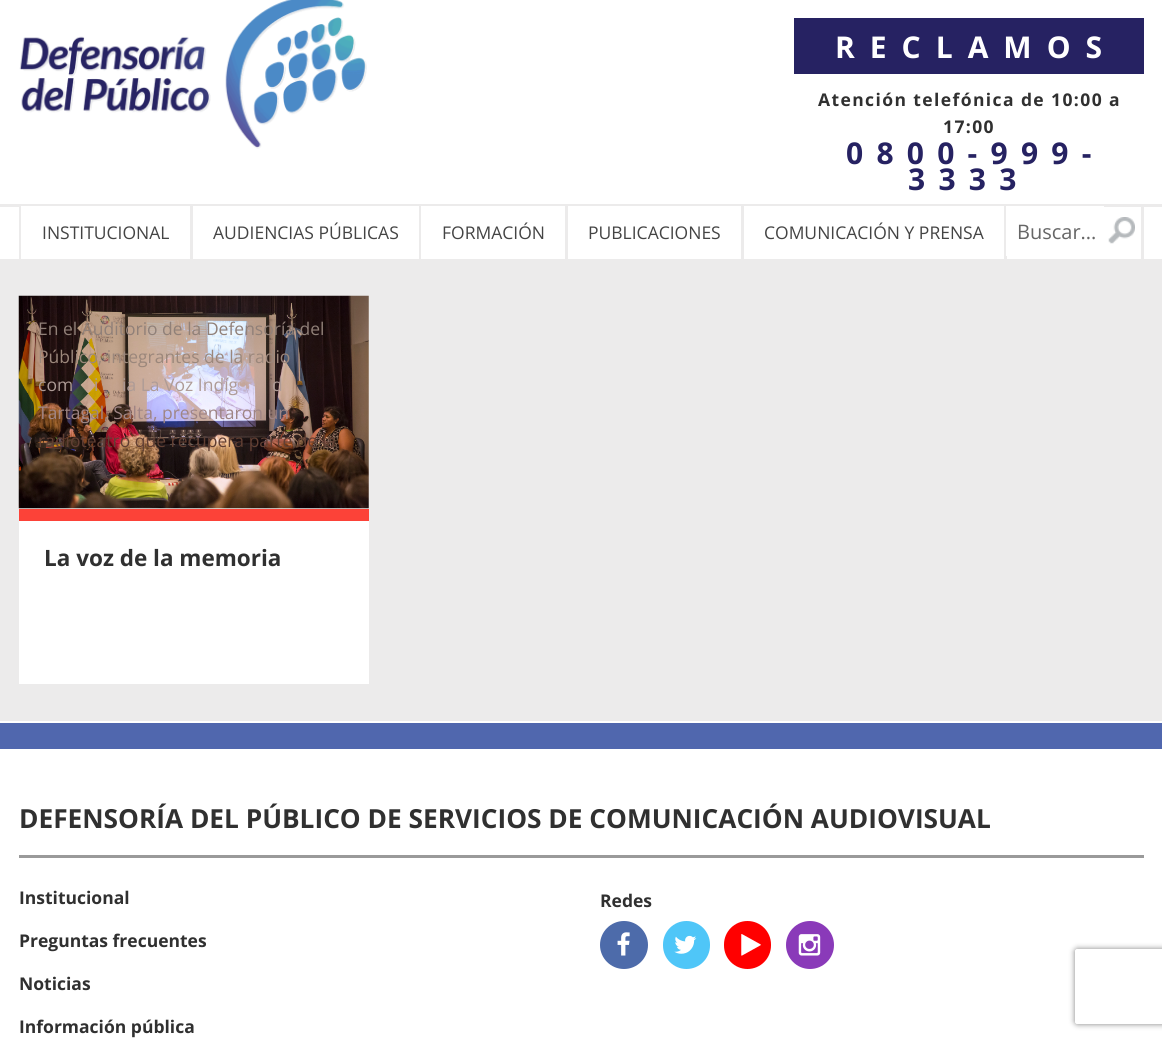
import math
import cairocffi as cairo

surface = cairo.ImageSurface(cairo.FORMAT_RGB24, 1162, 1041)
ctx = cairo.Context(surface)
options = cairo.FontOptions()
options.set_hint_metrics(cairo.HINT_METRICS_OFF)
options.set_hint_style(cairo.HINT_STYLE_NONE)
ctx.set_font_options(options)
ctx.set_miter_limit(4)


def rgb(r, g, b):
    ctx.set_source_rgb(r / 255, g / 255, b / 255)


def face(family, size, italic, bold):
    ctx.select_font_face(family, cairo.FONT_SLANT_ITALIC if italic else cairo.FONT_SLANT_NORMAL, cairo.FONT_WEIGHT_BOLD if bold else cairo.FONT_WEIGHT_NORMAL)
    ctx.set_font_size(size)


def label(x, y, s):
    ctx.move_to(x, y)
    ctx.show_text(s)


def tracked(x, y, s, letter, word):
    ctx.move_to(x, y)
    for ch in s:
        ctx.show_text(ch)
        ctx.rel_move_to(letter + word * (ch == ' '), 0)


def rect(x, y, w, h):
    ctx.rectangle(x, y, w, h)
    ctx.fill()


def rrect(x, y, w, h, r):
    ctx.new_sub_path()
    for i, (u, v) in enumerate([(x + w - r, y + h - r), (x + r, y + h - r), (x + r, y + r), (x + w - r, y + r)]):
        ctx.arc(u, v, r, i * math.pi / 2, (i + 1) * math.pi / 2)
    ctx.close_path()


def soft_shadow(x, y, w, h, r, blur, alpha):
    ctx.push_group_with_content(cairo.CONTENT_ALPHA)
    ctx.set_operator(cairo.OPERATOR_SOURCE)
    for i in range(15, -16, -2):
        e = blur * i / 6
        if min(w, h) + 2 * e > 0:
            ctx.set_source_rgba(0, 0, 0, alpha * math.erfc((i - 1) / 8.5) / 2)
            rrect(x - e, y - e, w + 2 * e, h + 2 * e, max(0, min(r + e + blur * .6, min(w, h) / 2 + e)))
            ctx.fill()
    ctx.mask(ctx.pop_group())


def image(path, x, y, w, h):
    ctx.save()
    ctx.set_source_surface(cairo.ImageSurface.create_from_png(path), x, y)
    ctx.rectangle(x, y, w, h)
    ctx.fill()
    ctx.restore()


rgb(236, 235, 235)
ctx.paint()
rgb(255, 255, 255)
rect(0, 0, 1162, 259)
image('image0.png', 19, 0, 348, 149)
rgb(38, 34, 98)
rect(794, 18, 350, 56)
face('Open Sans', 30, 0, 1)
rgb(255, 255, 255)
tracked(835, 58, 'RECLAMOS', 15, 0)
face('Open Sans', 17.5, 0, 1)
rgb(48, 48, 48)
tracked(818, 106, 'Atención telefónica de 10:00 a', 1.4, 0)
tracked(943, 133, '17:00', 1.4, 0)
face('Open Sans', 30, 0, 1)
rgb(38, 34, 98)
tracked(846, 164, '0800-999-', 13.25, 0)
tracked(908, 190, '3333', 13.25, 0)
rgb(236, 235, 235)
rect(0, 204, 1162, 3)
rect(19, 206, 2, 53)
rgb(255, 255, 255)
rect(21, 206, 169, 1)
face('Open Sans', 17.5, 0, 0)
rgb(68, 68, 68)
label(42, 239, 'INSTITUCIONAL')
rgb(236, 235, 235)
rect(190, 206, 3, 53)
rgb(255, 255, 255)
rect(193, 206, 226, 1)
rgb(68, 68, 68)
label(213, 239, 'AUDIENCIAS PÚBLICAS')
rgb(236, 235, 235)
rect(419, 206, 2, 53)
rgb(255, 255, 255)
rect(421, 206, 144, 1)
rgb(68, 68, 68)
label(442, 239, 'FORMACIÓN')
rgb(236, 235, 235)
rect(565, 206, 3, 53)
rgb(255, 255, 255)
rect(568, 206, 173, 1)
rgb(68, 68, 68)
label(588, 239, 'PUBLICACIONES')
rgb(236, 235, 235)
rect(741, 206, 3, 53)
rgb(255, 255, 255)
rect(744, 206, 260, 1)
rgb(68, 68, 68)
label(764, 239, 'COMUNICACIÓN Y PRENSA')
rgb(236, 235, 235)
rect(1141, 206, 3, 53)
rect(1004, 206, 3, 53)
rgb(255, 255, 255)
rect(1006, 206, 98, 50)
face('Open Sans', 20, 0, 0)
rgb(102, 102, 102)
label(1017, 239, 'Buscar...')
image('image1.png', 1108, 217, 27, 27)
image('image2.png', 18, 295, 351, 214)
face('Open Sans', 17.5, 0, 0)
rgb(144, 128, 120)
label(38, 335, 'En el Auditorio de la Defensoría del')
rgb(155, 135, 123)
label(38, 363, 'Público, integrantes de la radio')
rgb(174, 155, 150)
label(38, 391, 'com')
label(94, 391, 'i')
label(122, 391, 'ia La Voz Indíg')
label(272, 391, 'd')
rgb(159, 133, 133)
label(38, 419, 'Tartagal, Salta, presentaron un')
rgb(97, 63, 51)
label(38, 447, 'radioteatro que recupera parte de la')
rgb(255, 255, 255)
rect(19, 521, 350, 163)
rgb(252, 66, 56)
rect(19, 509, 350, 12)
face('Open Sans', 22.5, 0, 1)
rgb(48, 48, 48)
label(44, 566, 'La voz de la memoria')
rgb(255, 255, 255)
rect(0, 721, 1162, 320)
rgb(80, 103, 174)
rect(0, 723, 1162, 26)
face('Open Sans', 26.25, 0, 1)
rgb(48, 48, 48)
label(19, 828, 'DEFENSORÍA DEL PÚBLICO DE SERVICIOS DE COMUNICACIÓN AUDIOVISUAL')
rgb(154, 154, 154)
rect(19, 855, 1125, 3)
face('Open Sans', 17.5, 0, 1)
rgb(48, 48, 48)
label(19, 904, 'Institucional')
label(19, 947, 'Preguntas frecuentes')
label(19, 990, 'Noticias')
label(19, 1033, 'Información pública')
label(600, 907, 'Redes')
rgb(77, 107, 170)
ctx.new_path()
ctx.arc(624, 945, 24, 0, 2 * math.pi)
ctx.fill()
image('image3.png', 617, 932, 13, 24)
rgb(79, 198, 248)
rrect(663, 921, 47, 48, 23.5)
ctx.fill()
image('image4.png', 674, 935, 23, 19)
rgb(255, 0, 0)
rrect(724, 921, 47, 48, 23.5)
ctx.fill()
image('image5.png', 741, 934, 20, 22)
rgb(138, 58, 185)
ctx.arc(810, 945, 24, 0, 2 * math.pi)
ctx.fill()
image('image6.png', 798, 934, 23, 22)
ctx.save()
ctx.set_fill_rule(cairo.FILL_RULE_EVEN_ODD)
ctx.new_path()
ctx.move_to(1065, 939)
ctx.line_to(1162, 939)
ctx.line_to(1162, 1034)
ctx.line_to(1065, 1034)
ctx.close_path()
ctx.move_to(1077.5, 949)
ctx.line_to(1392.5, 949)
ctx.curve_to(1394, 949, 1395, 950, 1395, 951.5)
ctx.line_to(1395, 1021.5)
ctx.curve_to(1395, 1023, 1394, 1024, 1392.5, 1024)
ctx.line_to(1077.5, 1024)
ctx.curve_to(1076, 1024, 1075, 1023, 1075, 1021.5)
ctx.line_to(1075, 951.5)
ctx.curve_to(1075, 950, 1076, 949, 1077.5, 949)
ctx.close_path()
ctx.clip()
rgb(128, 128, 128)
soft_shadow(1075, 949, 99, 75, 2.5, 3, 1)
ctx.restore()
surface.write_to_png('render.png')
